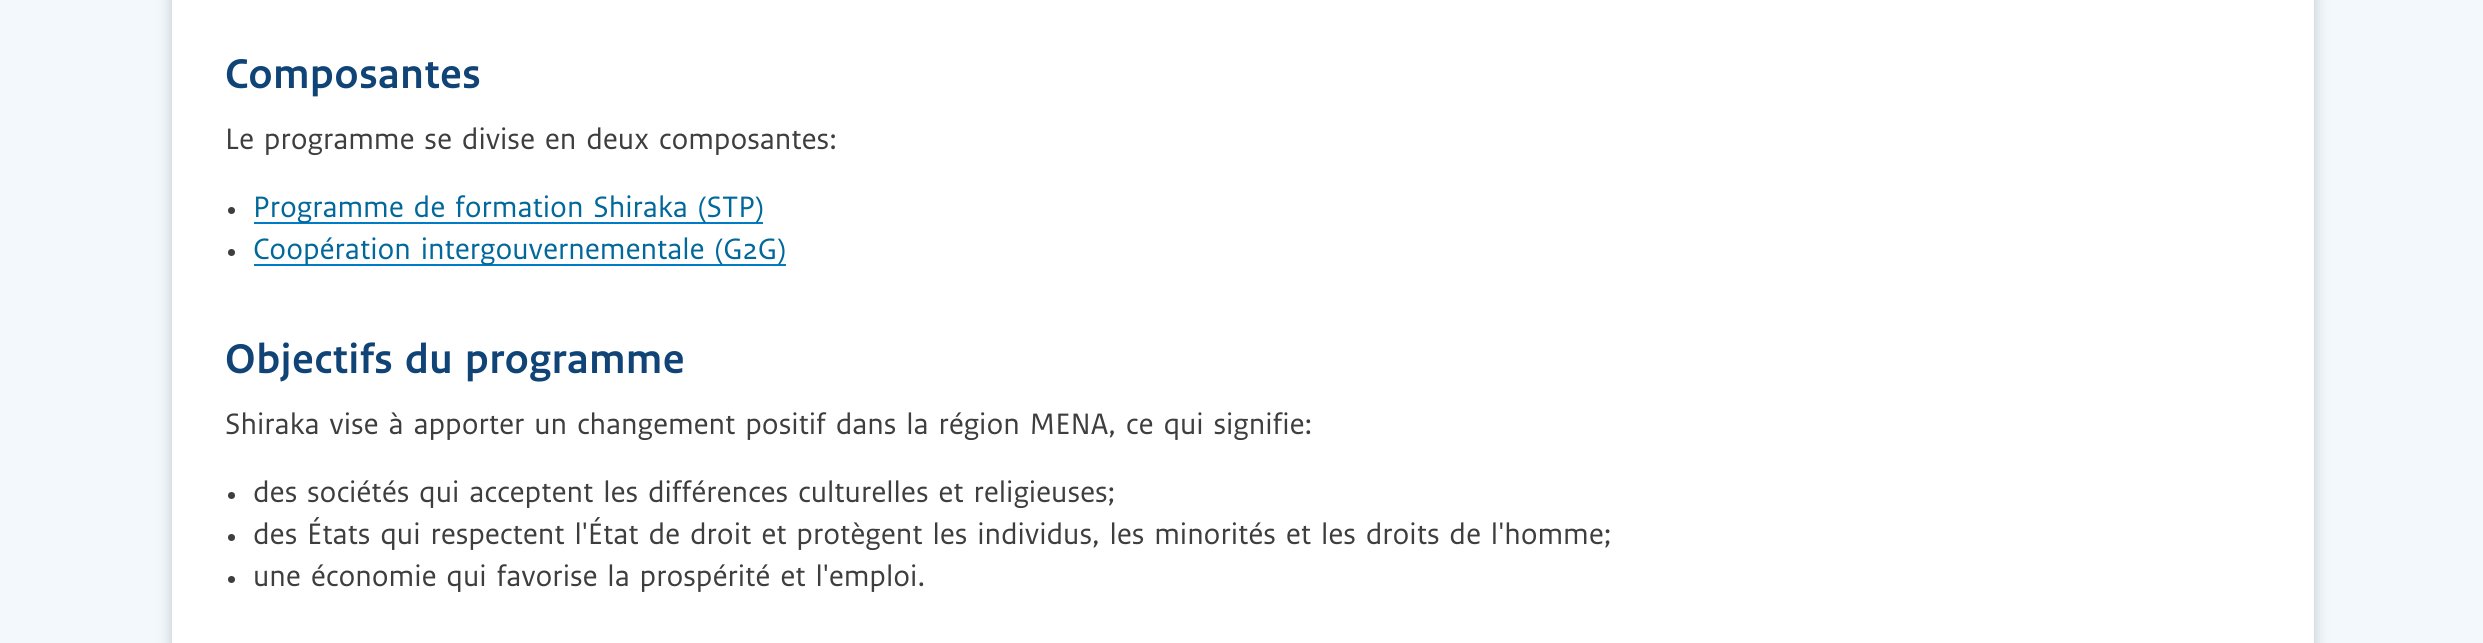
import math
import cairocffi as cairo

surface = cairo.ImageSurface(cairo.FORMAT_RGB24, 2483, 643)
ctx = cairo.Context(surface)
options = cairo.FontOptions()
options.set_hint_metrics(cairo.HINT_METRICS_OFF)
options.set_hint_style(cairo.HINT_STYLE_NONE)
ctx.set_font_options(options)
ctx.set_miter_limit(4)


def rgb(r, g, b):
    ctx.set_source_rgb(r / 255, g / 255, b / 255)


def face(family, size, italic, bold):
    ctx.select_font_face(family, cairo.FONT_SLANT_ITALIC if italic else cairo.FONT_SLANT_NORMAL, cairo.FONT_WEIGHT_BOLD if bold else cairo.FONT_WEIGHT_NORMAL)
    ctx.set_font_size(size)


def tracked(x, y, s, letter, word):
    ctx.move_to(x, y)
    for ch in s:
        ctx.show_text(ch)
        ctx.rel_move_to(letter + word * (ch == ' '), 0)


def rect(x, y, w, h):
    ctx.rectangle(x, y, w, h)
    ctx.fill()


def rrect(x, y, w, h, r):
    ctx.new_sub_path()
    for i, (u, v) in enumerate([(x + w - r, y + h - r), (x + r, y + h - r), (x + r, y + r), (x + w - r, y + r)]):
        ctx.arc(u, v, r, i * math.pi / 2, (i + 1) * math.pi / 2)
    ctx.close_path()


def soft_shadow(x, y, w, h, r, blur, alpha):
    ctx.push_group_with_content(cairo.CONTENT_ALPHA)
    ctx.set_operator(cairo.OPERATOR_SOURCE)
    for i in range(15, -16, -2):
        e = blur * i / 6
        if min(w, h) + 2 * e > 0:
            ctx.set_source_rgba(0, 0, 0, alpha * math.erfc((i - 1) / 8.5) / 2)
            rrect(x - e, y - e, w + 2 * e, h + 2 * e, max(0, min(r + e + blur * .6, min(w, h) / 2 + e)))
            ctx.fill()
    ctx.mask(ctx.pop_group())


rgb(242, 248, 252)
ctx.paint()
rgb(190, 198, 204)
soft_shadow(172, -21, 2142, 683, 0, 7, 1)
rgb(255, 255, 255)
rect(172, 0, 2142, 643)
face('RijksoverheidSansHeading', 42, 0, 1)
rgb(17, 68, 118)
tracked(225, 88, 'Composantes', 0.9, 0)
face('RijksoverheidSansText', 28, 0, 0)
rgb(62, 62, 62)
tracked(225, 149, 'Le programme se divise en deux composantes:', 0, 3.5)
ctx.new_path()
ctx.arc(231.5, 210.5, 3.5, 0, 2 * math.pi)
ctx.fill()
rgb(0, 123, 199)
rect(254, 222, 509, 2)
rgb(1, 104, 155)
tracked(253, 217, 'Programme de formation Shiraka (STP)', 0, 3.5)
rgb(62, 62, 62)
ctx.new_path()
ctx.arc(231.5, 252.5, 3.5, 0, 2 * math.pi)
ctx.fill()
rgb(0, 123, 199)
rect(254, 264, 532, 2)
rgb(1, 104, 155)
tracked(253, 259, 'Coopération intergouvernementale (G2G)', 0, 3.5)
face('RijksoverheidSansHeading', 42, 0, 1)
rgb(17, 68, 118)
tracked(225, 373, 'Objectifs du programme', 0.9, 3.5)
face('RijksoverheidSansText', 28, 0, 0)
rgb(62, 62, 62)
tracked(225, 434, 'Shiraka vise à apporter un changement positif dans la région MENA, ce qui signifie:', 0, 3.5)
ctx.new_path()
ctx.arc(231.5, 495.5, 3.5, 0, 2 * math.pi)
ctx.fill()
tracked(253, 502, 'des sociétés qui acceptent les différences culturelles et religieuses;', 0, 3.5)
ctx.new_path()
ctx.arc(231.5, 537.5, 3.5, 0, 2 * math.pi)
ctx.fill()
tracked(253, 544, 'des États qui respectent l\'État de droit et protègent les individus, les minorités et les droits de l\'homme;', 0, 3.5)
ctx.new_path()
ctx.arc(231.5, 579.5, 3.5, 0, 2 * math.pi)
ctx.fill()
tracked(253, 586, 'une économie qui favorise la prospérité et l\'emploi.', 0, 3.5)
surface.write_to_png('render.png')
